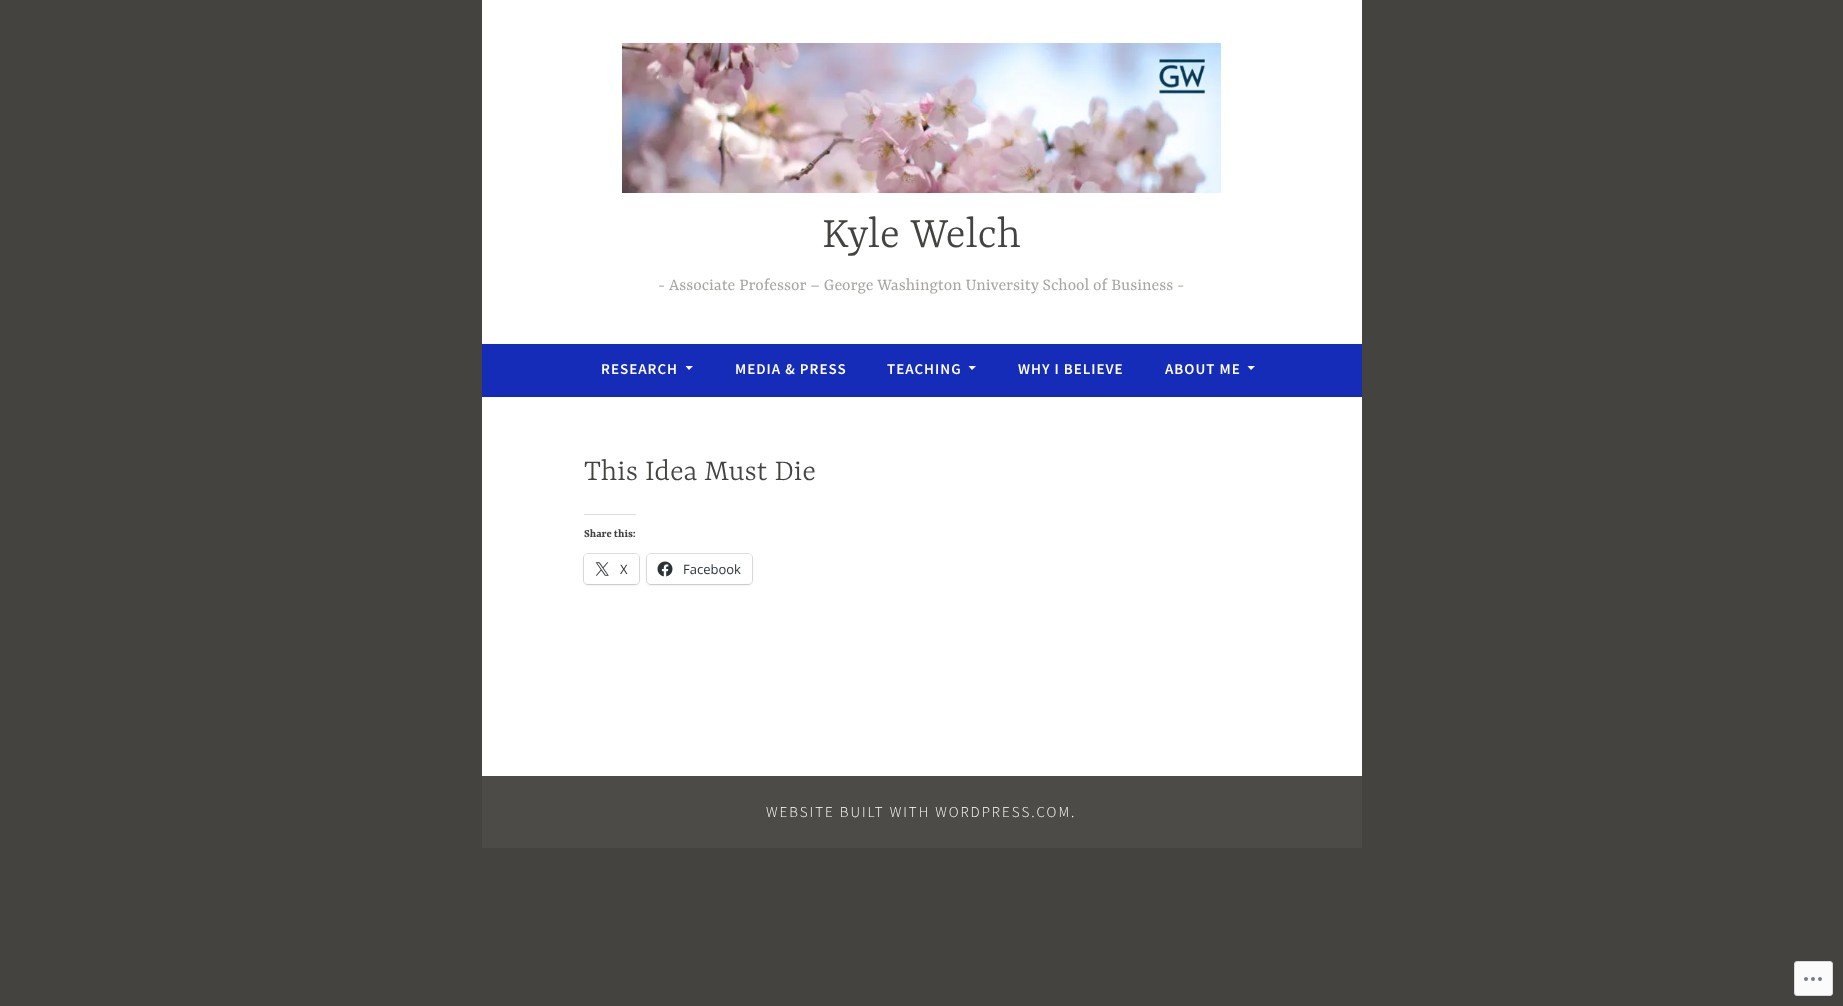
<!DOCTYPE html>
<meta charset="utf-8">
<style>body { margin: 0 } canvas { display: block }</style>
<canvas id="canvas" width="1843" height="1006"></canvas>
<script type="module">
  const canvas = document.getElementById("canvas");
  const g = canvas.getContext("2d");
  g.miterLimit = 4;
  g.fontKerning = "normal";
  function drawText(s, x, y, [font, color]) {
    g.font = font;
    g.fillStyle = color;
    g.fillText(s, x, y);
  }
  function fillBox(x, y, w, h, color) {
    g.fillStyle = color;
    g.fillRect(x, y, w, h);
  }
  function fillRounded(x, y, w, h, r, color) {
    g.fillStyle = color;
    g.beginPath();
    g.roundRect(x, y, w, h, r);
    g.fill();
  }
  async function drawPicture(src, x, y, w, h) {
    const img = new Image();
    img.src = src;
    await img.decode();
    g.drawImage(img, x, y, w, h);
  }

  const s1 = ["300 47px Yrsa", "#444340"];
  const s2 = ["18px Yrsa", "#A8A6A1"];
  const s3 = ["600 15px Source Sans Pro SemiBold", "#FFFFFF"];
  const s4 = ["300 32px Yrsa", "#444340"];
  const s5 = ["bold 12px Yrsa", "#444340"];
  const s6 = ["13px Open Sans", "#2C3338"];
  const s7 = ["300 15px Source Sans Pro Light", "#FFFFFF"];

  fillBox(0, 0, 1843, 1006, "#444340");
  fillBox(482, 0, 880, 344, "#FFFFFF");
  await drawPicture("pic1.png", 622, 43, 599, 150);
  drawText("Kyle Welch", 822, 247, s1);
  drawText("- Associate Professor – George Washington University School of Business -", 658, 290, s2);
  fillBox(482, 344, 880, 51, "#142CB7");
  fillBox(482, 395, 880, 2, "#132BB2");
  g.letterSpacing = "1px";
  drawText("RESEARCH", 601, 374, s3);
  g.beginPath();
  g.moveTo(685.5, 366);
  g.lineTo(693, 366);
  g.lineTo(689, 370);
  g.closePath();
  g.fill();
  drawText("MEDIA & PRESS", 735, 374, s3);
  drawText("TEACHING", 887, 374, s3);
  g.beginPath();
  g.moveTo(968.5, 366);
  g.lineTo(976, 366);
  g.lineTo(972, 370);
  g.closePath();
  g.fill();
  drawText("WHY I BELIEVE", 1018, 374, s3);
  drawText("ABOUT ME", 1165, 374, s3);
  g.beginPath();
  g.moveTo(1247.5, 366);
  g.lineTo(1255, 366);
  g.lineTo(1251, 370);
  g.closePath();
  g.fill();
  fillBox(482, 397, 880, 379, "#FFFFFF");
  g.letterSpacing = "0px";
  drawText("This Idea Must Die", 584, 480, s4);
  fillBox(584, 514, 52, 1, "#DCDCDE");
  drawText("Share this:", 584, 537, s5);
  g.beginPath();
  g.roundRect(583.5, 553.5, 56, 31, 4.5);
  g.strokeStyle = "#E0E0E0";
  g.stroke();
  g.fillStyle = "rgba(0, 0, 0, 0.12)";
  g.filter = "blur(1px)";
  g.beginPath();
  g.roundRect(584, 555, 55, 30, 4);
  g.fill();
  g.filter = "none";
  fillRounded(584, 554, 55, 30, 4, "#FFFFFF");
  await drawPicture("pic2.png", 595, 562, 14, 14);
  drawText("X", 620, 574, s6);
  g.beginPath();
  g.roundRect(646.5, 553.5, 106, 31, 4.5);
  g.stroke();
  g.fillStyle = "rgba(0, 0, 0, 0.12)";
  g.filter = "blur(1px)";
  g.beginPath();
  g.roundRect(647, 555, 105, 30, 4);
  g.fill();
  g.filter = "none";
  fillRounded(647, 554, 105, 30, 4, "#FFFFFF");
  await drawPicture("pic3.png", 657, 561, 16, 16);
  drawText("Facebook", 683, 574, s6);
  fillBox(482, 776, 880, 72, "#4C4B47");
  g.letterSpacing = "2px";
  drawText("WEBSITE BUILT WITH WORDPRESS.COM.", 766, 817, s7);
  g.fillStyle = "#FBFBFB";
  g.beginPath();
  g.roundRect(1794.5, 961.5, 38, 34, 2.5);
  g.fill();
  g.strokeStyle = "#D9D9DB";
  g.stroke();
  await drawPicture("pic4.png", 1804, 977, 18, 4);
</script>
